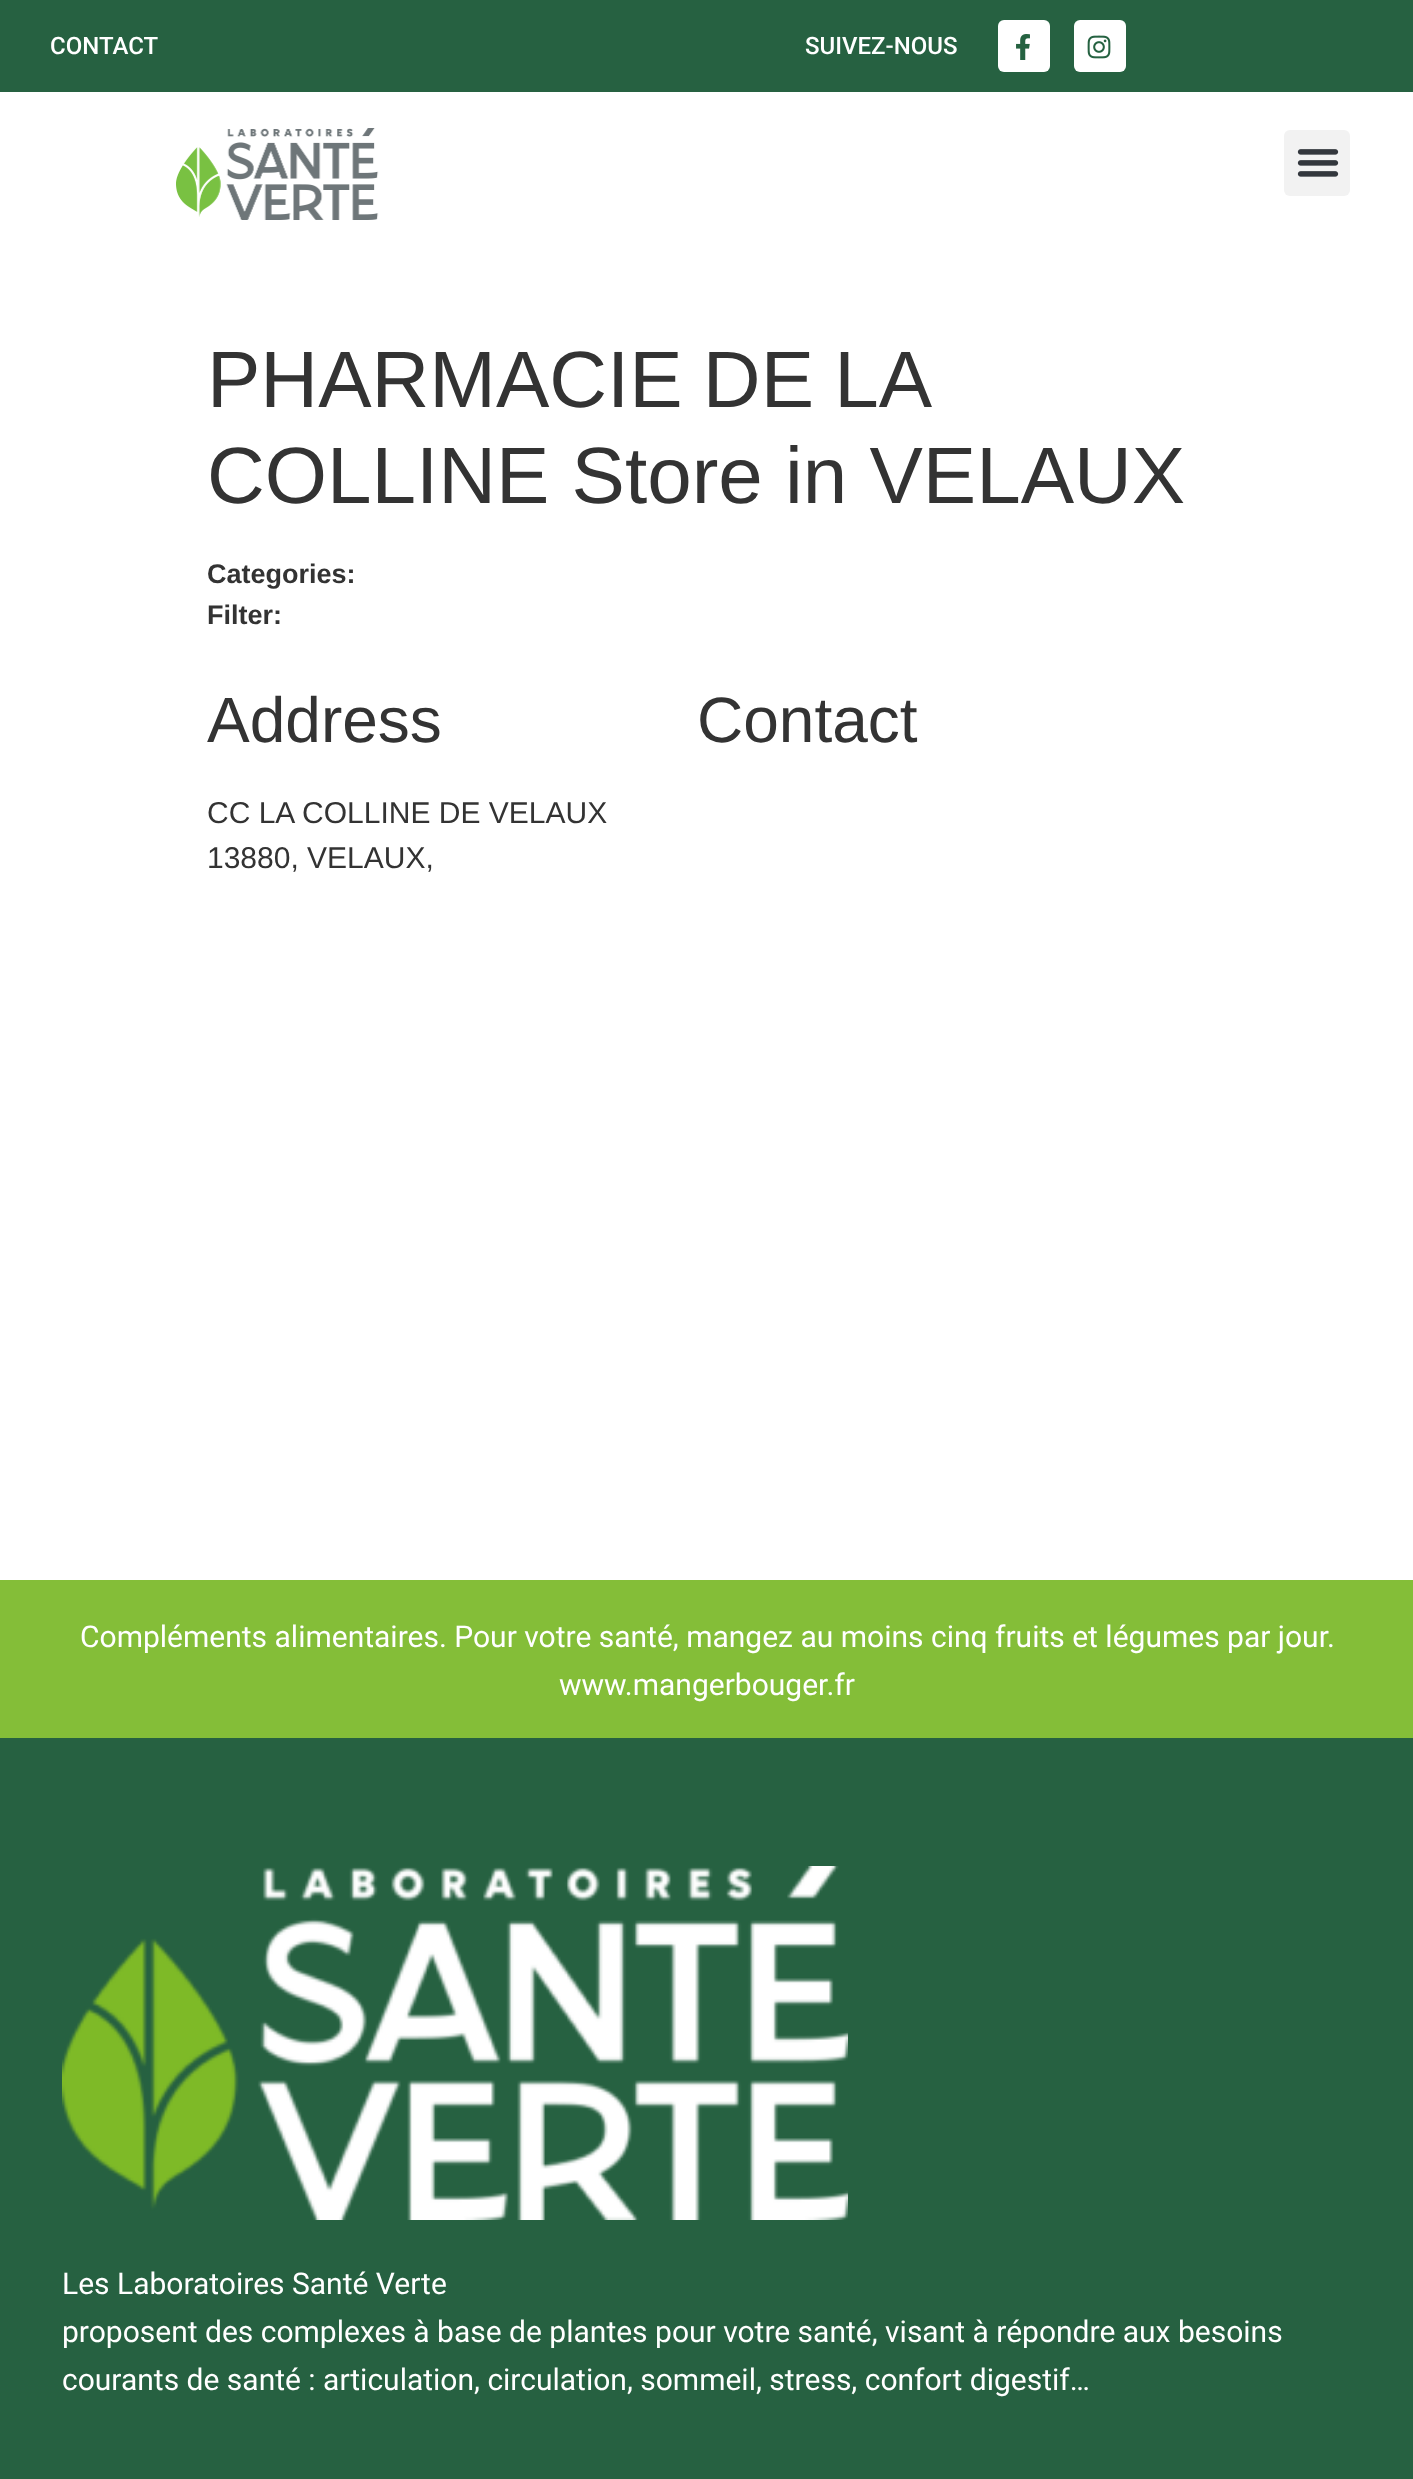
<!DOCTYPE html>
<meta charset="utf-8">
<style>body { margin: 0 } canvas { display: block }</style>
<canvas id="canvas" width="1413" height="2479"></canvas>
<script type="module">
  const canvas = document.getElementById("canvas");
  const g = canvas.getContext("2d");
  g.miterLimit = 4;
  g.fontKerning = "normal";
  function drawText(s, x, y, [font, color]) {
    g.font = font;
    g.fillStyle = color;
    g.fillText(s, x, y);
  }
  function fillBox(x, y, w, h, color) {
    g.fillStyle = color;
    g.fillRect(x, y, w, h);
  }
  function fillRounded(x, y, w, h, r, color) {
    g.fillStyle = color;
    g.beginPath();
    g.roundRect(x, y, w, h, r);
    g.fill();
  }
  async function drawPicture(src, x, y, w, h) {
    const img = new Image();
    img.src = src;
    await img.decode();
    g.drawImage(img, x, y, w, h);
  }

  const s1 = ["500 24px Roboto", "#FFFFFF"];
  const s2 = ["80px Liberation Sans", "#333333"];
  const s3 = ["bold 27px Liberation Sans", "#333333"];
  const s4 = ["64px Liberation Sans", "#333333"];
  const s5 = ["30px Liberation Sans", "#333333"];
  const s6 = ["30px Roboto", "#FFFFFF"];

  fillBox(0, 0, 1413, 2479, "#FFFFFF");
  fillBox(0, 0, 1413, 92, "#266141");
  drawText("CONTACT", 50, 54, s1);
  drawText("SUIVEZ-NOUS", 805, 54, s1);
  fillRounded(998, 20, 52, 52, 6, "#FFFFFF");
  await drawPicture("pic1.png", 1016, 34, 14, 26);
  fillRounded(1074, 20, 52, 52, 6, "#FFFFFF");
  await drawPicture("pic2.png", 1087, 35, 24, 24);
  await drawPicture("pic3.png", 176, 128, 203, 92);
  fillRounded(1284, 130, 66, 66, 6, "#F2F2F2");
  await drawPicture("pic4.png", 1297, 149, 42, 28);
  g.wordSpacing = "-2px";
  drawText("PHARMACIE DE LA", 207, 407, s2);
  g.wordSpacing = "0px";
  drawText("COLLINE Store in VELAUX", 207, 503, s2);
  drawText("Categories:", 207, 583, s3);
  drawText("Filter:", 207, 624, s3);
  drawText("Address", 207, 742, s4);
  drawText("CC LA COLLINE DE VELAUX", 207, 823, s5);
  drawText("13880, VELAUX,", 207, 868, s5);
  drawText("Contact", 697, 742, s4);
  fillBox(0, 1580, 1413, 158, "#84BE38");
  drawText("Compléments alimentaires. Pour votre santé, mangez au moins cinq fruits et légumes par jour.", 80, 1647, s6);
  drawText("www.mangerbouger.fr", 559, 1695, s6);
  fillBox(0, 1738, 1413, 741, "#266141");
  await drawPicture("pic5.png", 62, 1866, 786, 354);
  drawText("Les Laboratoires Santé Verte", 62, 2294, s6);
  drawText("proposent des complexes à base de plantes pour votre santé, visant à répondre aux besoins", 62, 2342, s6);
  drawText("courants de santé : articulation, circulation, sommeil, stress, confort digestif…", 62, 2390, s6);
</script>
